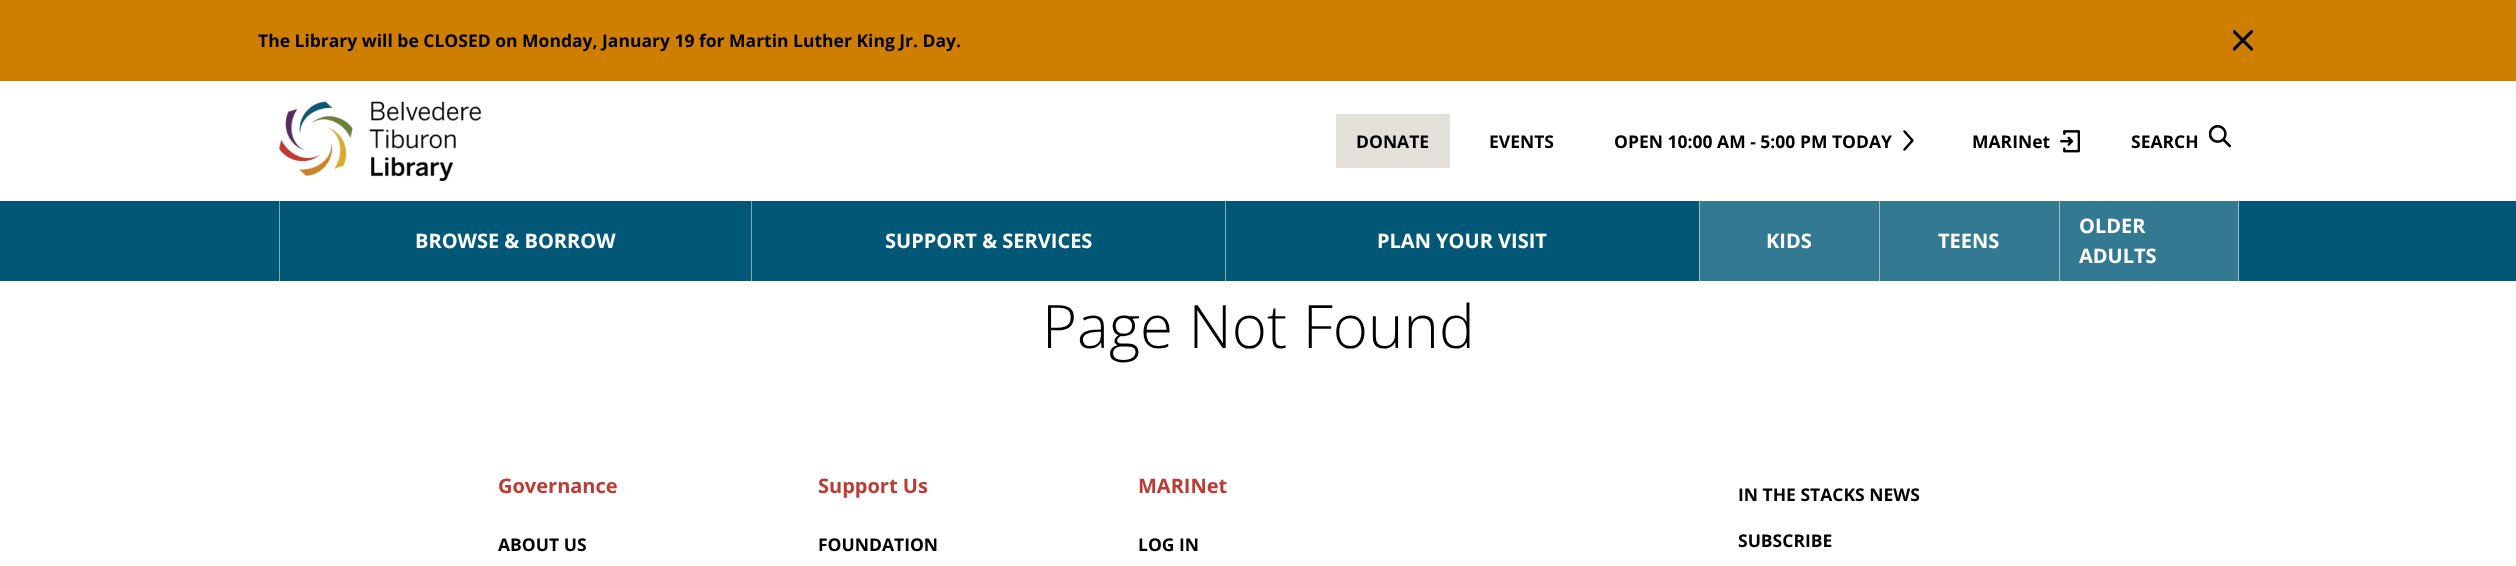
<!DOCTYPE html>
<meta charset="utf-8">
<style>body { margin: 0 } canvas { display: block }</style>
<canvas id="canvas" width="2516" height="566"></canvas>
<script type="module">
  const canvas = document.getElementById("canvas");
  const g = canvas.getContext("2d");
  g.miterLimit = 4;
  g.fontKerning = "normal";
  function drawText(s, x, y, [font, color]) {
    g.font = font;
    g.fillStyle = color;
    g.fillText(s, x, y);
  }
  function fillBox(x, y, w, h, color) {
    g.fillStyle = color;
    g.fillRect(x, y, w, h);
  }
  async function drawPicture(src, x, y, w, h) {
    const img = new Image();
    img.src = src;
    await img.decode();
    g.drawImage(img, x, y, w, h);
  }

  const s1 = ["bold 17.5px Open Sans", "#000000"];
  const s2 = ["bold 20px Open Sans", "#FFFFFF"];
  const s3 = ["300 60px Open Sans", "#000000"];
  const s4 = ["bold 20px Open Sans", "#BE3A34"];

  fillBox(0, 0, 2516, 566, "#FFFFFF");
  fillBox(0, 0, 2516, 81, "#CF7F00");
  drawText("The Library will be CLOSED on Monday, January 19 for Martin Luther King Jr. Day.", 258, 47, s1);
  await drawPicture("pic1.png", 2233, 30, 21, 21);
  await drawPicture("pic2.png", 279, 101, 202, 81);
  fillBox(1336, 114, 114, 54, "#E3DFD9");
  drawText("DONATE", 1356, 148, s1);
  drawText("EVENTS", 1489, 148, s1);
  drawText("OPEN 10:00 AM - 5:00 PM TODAY", 1614, 148, s1);
  g.beginPath();
  g.moveTo(1904.5, 131.5);
  g.lineTo(1912.5, 140.5);
  g.lineTo(1904.5, 149.5);
  g.strokeStyle = "#000000";
  g.lineWidth = 2.5;
  g.lineCap = "round";
  g.lineJoin = "round";
  g.stroke();
  drawText("MARINet", 1972, 148, s1);
  await drawPicture("pic3.png", 2060, 130, 20, 23);
  drawText("SEARCH", 2131, 148, s1);
  await drawPicture("pic4.png", 2209, 125, 22, 23);
  fillBox(0, 201, 2516, 80, "#005776");
  fillBox(279, 201, 1, 80, "#80ABBB");
  drawText("BROWSE & BORROW", 415, 248, s2);
  fillBox(751, 201, 1, 80, "#80ABBB");
  drawText("SUPPORT & SERVICES", 885, 248, s2);
  fillBox(1225, 201, 1, 80, "#80ABBB");
  drawText("PLAN YOUR VISIT", 1377, 248, s2);
  fillBox(1700, 201, 179, 80, "#337991");
  fillBox(1699, 201, 1, 80, "#99BCC8");
  drawText("KIDS", 1766, 248, s2);
  fillBox(1880, 201, 179, 80, "#337991");
  fillBox(1879, 201, 1, 80, "#99BCC8");
  drawText("TEENS", 1938, 248, s2);
  fillBox(2060, 201, 178, 80, "#337991");
  fillBox(2238, 201, 1, 80, "#99BCC8");
  fillBox(2059, 201, 1, 80, "#99BCC8");
  drawText("OLDER", 2079, 233, s2);
  drawText("ADULTS", 2079, 263, s2);
  drawText("Page Not Found", 1042, 348, s3);
  drawText("Governance", 498, 493, s4);
  drawText("ABOUT US", 498, 551, s1);
  drawText("Support Us", 818, 493, s4);
  drawText("FOUNDATION", 818, 551, s1);
  drawText("MARINet", 1138, 493, s4);
  drawText("LOG IN", 1138, 551, s1);
  drawText("IN THE STACKS NEWS", 1738, 501, s1);
  drawText("SUBSCRIBE", 1738, 547, s1);
</script>
